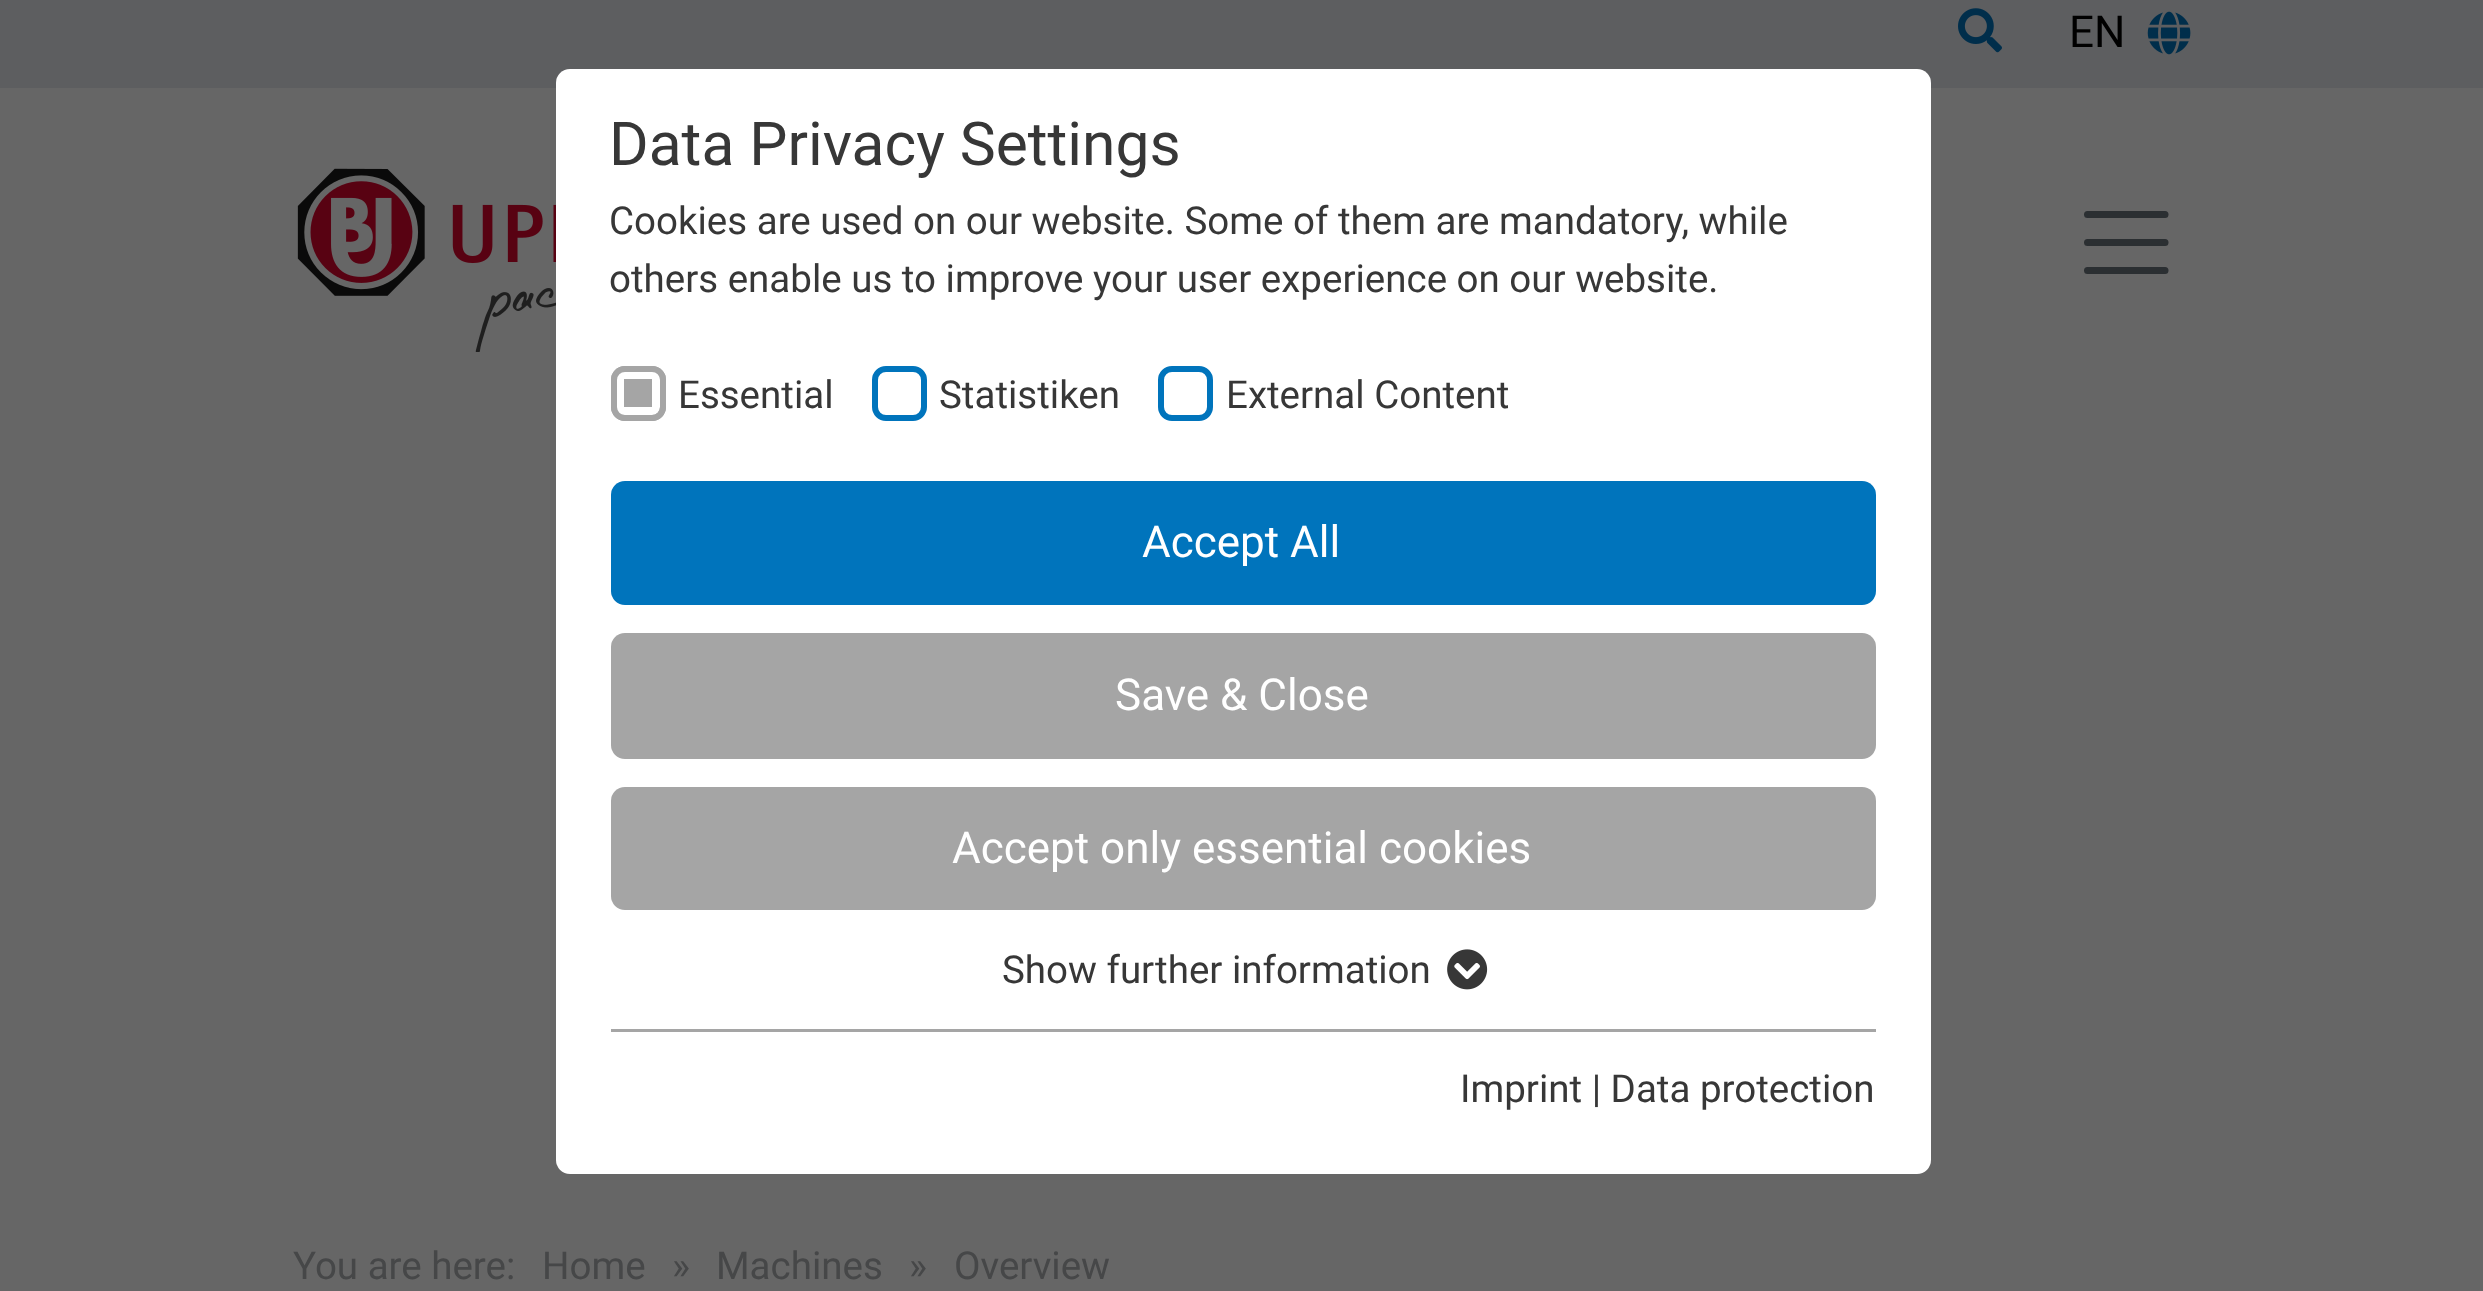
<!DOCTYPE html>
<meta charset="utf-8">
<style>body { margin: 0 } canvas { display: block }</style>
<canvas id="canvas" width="2483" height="1291"></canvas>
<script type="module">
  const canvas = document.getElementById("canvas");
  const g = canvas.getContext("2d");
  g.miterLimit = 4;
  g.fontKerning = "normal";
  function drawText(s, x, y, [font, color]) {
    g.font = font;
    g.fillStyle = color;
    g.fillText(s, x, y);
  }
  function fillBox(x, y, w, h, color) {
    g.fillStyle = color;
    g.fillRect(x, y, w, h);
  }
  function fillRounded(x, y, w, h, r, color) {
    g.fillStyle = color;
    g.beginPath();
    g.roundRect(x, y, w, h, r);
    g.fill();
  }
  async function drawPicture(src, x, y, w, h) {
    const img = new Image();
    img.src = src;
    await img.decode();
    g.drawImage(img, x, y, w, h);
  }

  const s1 = ["44px Roboto", "#000000"];
  const s2 = ["38.5px Roboto", "#464748"];
  const s3 = ["60.5px Roboto", "#373737"];
  const s4 = ["38.5px Roboto", "#373737"];
  const s5 = ["44px Roboto", "#FFFFFF"];

  fillBox(0, 0, 2483, 1291, "#666666");
  fillBox(0, 0, 2483, 88, "#5D5E60");
  await drawPicture("pic1.png", 1958, 8, 44, 45);
  drawText("EN", 2069, 47, s1);
  await drawPicture("pic2.png", 2147, 11, 44, 44);
  await drawPicture("pic3.png", 297, 168, 259, 184);
  g.beginPath();
  g.moveTo(2087.5, 214.5);
  g.lineTo(2165, 214.5);
  g.moveTo(2087.5, 242.5);
  g.lineTo(2165, 242.5);
  g.moveTo(2087.5, 270.5);
  g.lineTo(2165, 270.5);
  g.strokeStyle = "#2B2F32";
  g.lineWidth = 7;
  g.lineCap = "round";
  g.stroke();
  drawText("You are here:", 293, 1279, s2);
  drawText("Home", 542, 1279, s2);
  drawText("»", 672, 1279, s2);
  drawText("Machines", 716, 1279, s2);
  drawText("»", 909, 1279, s2);
  drawText("Overview", 954, 1279, s2);
  fillRounded(556, 69, 1375, 1105, 14, "#FFFFFF");
  drawText("Data Privacy Settings", 609, 165, s3);
  drawText("Cookies are used on our website. Some of them are mandatory, while", 609, 234, s4);
  drawText("others enable us to improve your user experience on our website.", 609, 292, s4);
  fillRounded(611, 366, 55, 55, 14, "#A5A5A5");
  g.beginPath();
  g.roundRect(620, 375, 36, 36, 4);
  g.strokeStyle = "#FFFFFF";
  g.lineWidth = 8;
  g.stroke();
  g.beginPath();
  g.roundRect(614, 369, 49, 49, 11);
  g.strokeStyle = "#A5A5A5";
  g.lineWidth = 6;
  g.stroke();
  drawText("Essential", 678, 408, s4);
  g.beginPath();
  g.roundRect(875, 369, 49, 49, 11);
  g.strokeStyle = "#0074BC";
  g.stroke();
  drawText("Statistiken", 939, 408, s4);
  g.beginPath();
  g.roundRect(1161, 369, 49, 49, 11);
  g.stroke();
  drawText("External Content", 1226, 408, s4);
  fillRounded(611, 481, 1265, 124, 14, "#0074BC");
  drawText("Accept All", 1142, 557, s5);
  fillRounded(611, 633, 1265, 126, 14, "#A5A5A5");
  drawText("Save & Close", 1115, 710, s5);
  fillRounded(611, 787, 1265, 123, 14, "#A5A5A5");
  drawText("Accept only essential cookies", 952, 863, s5);
  drawText("Show further information", 1002, 983, s4);
  await drawPicture("pic4.png", 1447, 949, 41, 41);
  fillBox(611, 1029, 1265, 3, "#A5A5A5");
  drawText("Imprint | Data protection", 1460, 1102, s4);
</script>
